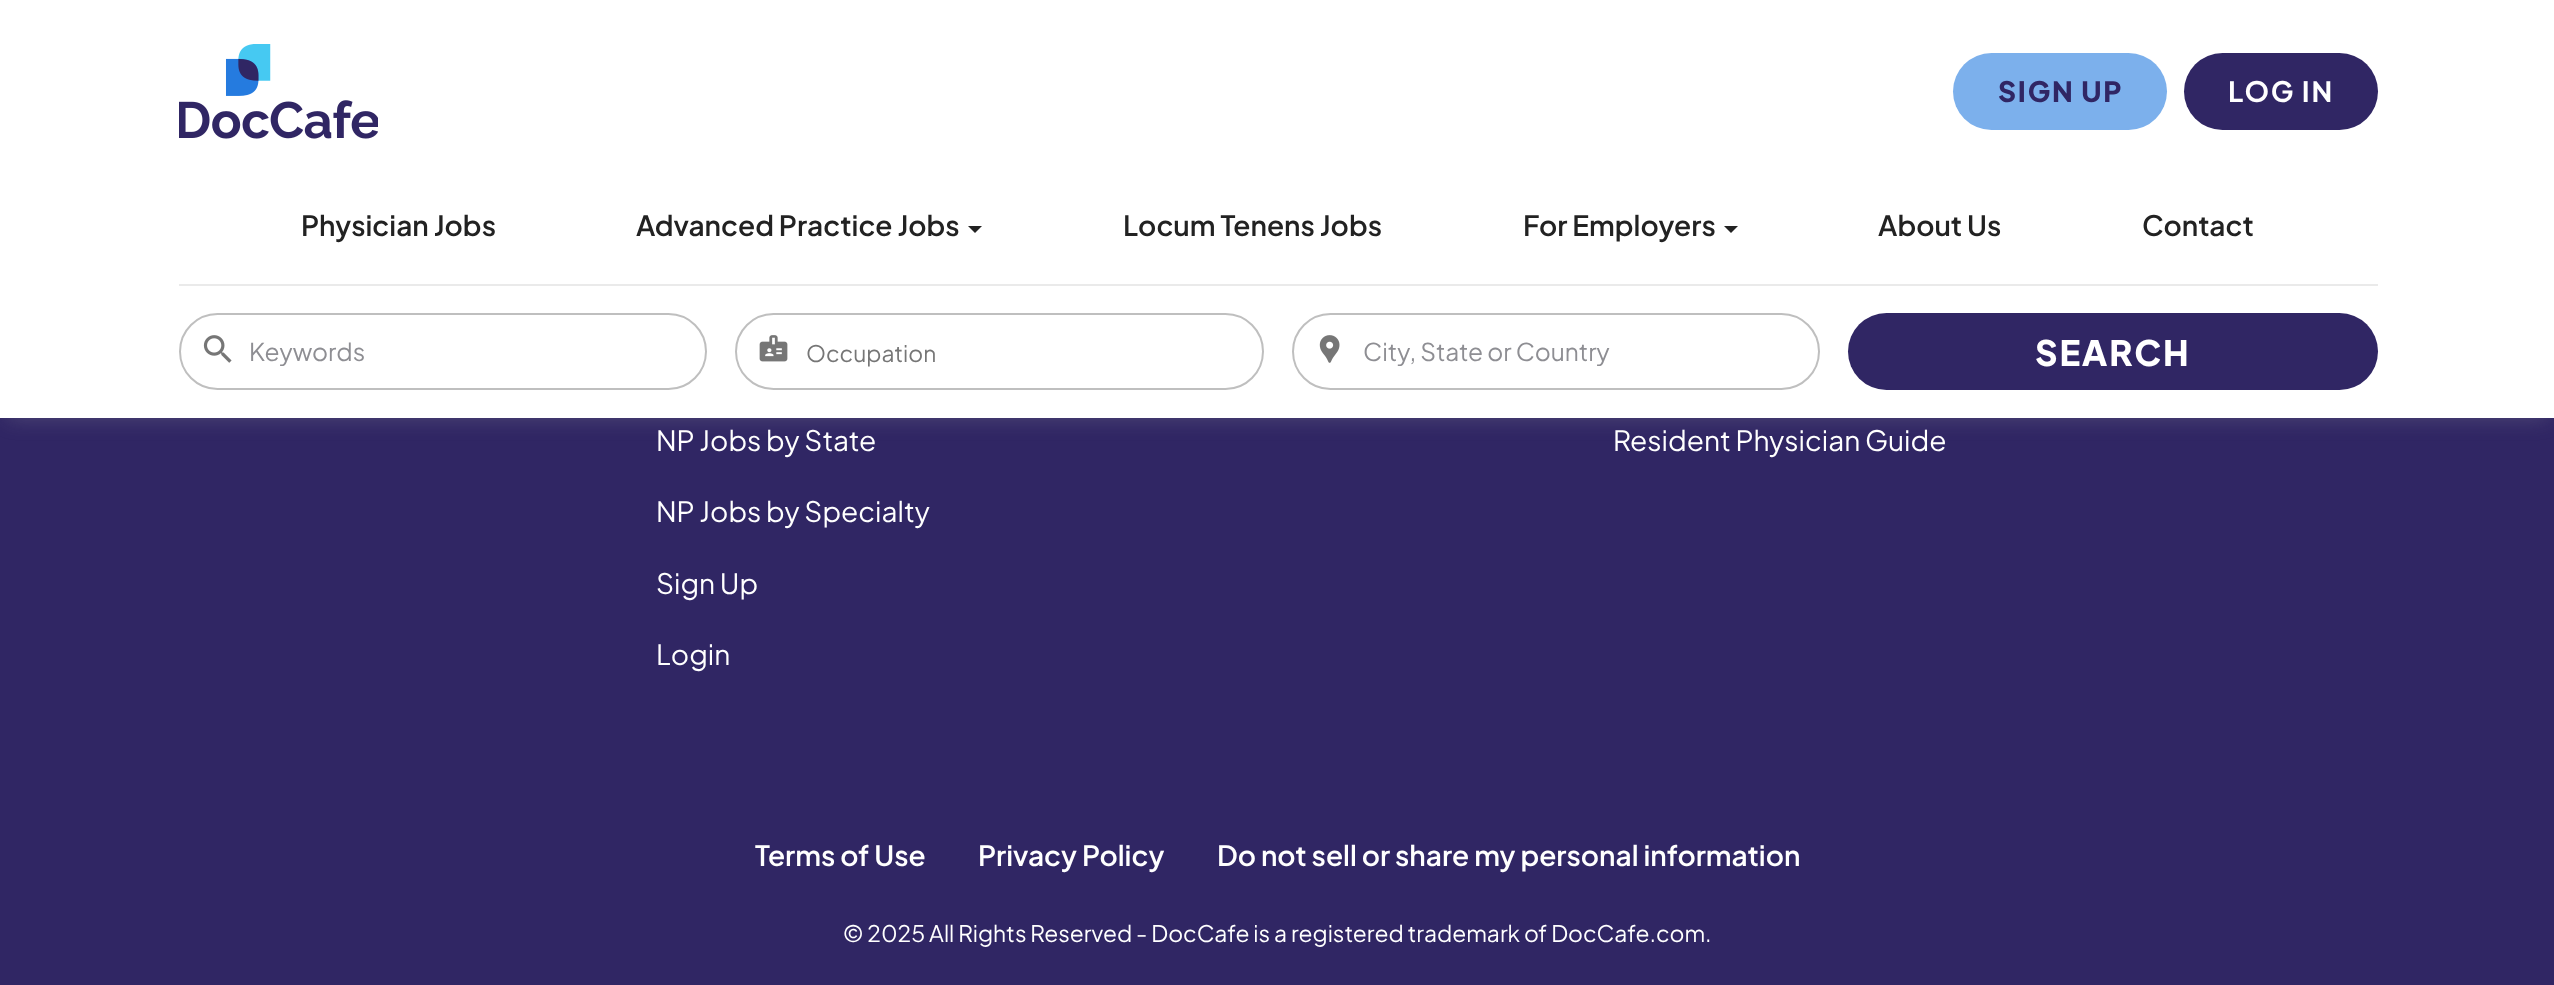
<!DOCTYPE html>
<meta charset="utf-8">
<style>body { margin: 0 } canvas { display: block }</style>
<canvas id="canvas" width="2554" height="985"></canvas>
<script type="module">
  const canvas = document.getElementById("canvas");
  const g = canvas.getContext("2d");
  g.miterLimit = 4;
  g.fontKerning = "normal";
  function drawText(s, x, y, [font, color]) {
    g.font = font;
    g.fillStyle = color;
    g.fillText(s, x, y);
  }
  function fillBox(x, y, w, h, color) {
    g.fillStyle = color;
    g.fillRect(x, y, w, h);
  }
  function fillRounded(x, y, w, h, r, color) {
    g.fillStyle = color;
    g.beginPath();
    g.roundRect(x, y, w, h, r);
    g.fill();
  }
  async function drawPicture(src, x, y, w, h) {
    const img = new Image();
    img.src = src;
    await img.decode();
    g.drawImage(img, x, y, w, h);
  }

  const s1 = ["800 28px Plus Jakarta Sans", "#302664"];
  const s2 = ["bold 28px Plus Jakarta Sans", "#FFFFFF"];
  const s3 = ["600 28px Plus Jakarta Sans", "#222222"];
  const s4 = ["24.5px Plus Jakarta Sans", "#8E8E93"];
  const s5 = ["22.75px Plus Jakarta Sans", "#767676"];
  const s6 = ["800 35px Plus Jakarta Sans", "#FFFFFF"];
  const s7 = ["28px Plus Jakarta Sans", "#FFFFFF"];
  const s8 = ["600 28px Plus Jakarta Sans", "#FFFFFF"];
  const s9 = ["22.75px Plus Jakarta Sans", "#FFFFFF"];

  fillBox(0, 0, 2554, 985, "#302664");
  g.fillStyle = "rgba(176, 176, 176, 0.25)";
  g.filter = "blur(10.5px)";
  g.beginPath();
  g.rect(7, 14, 2541, 404);
  g.fill();
  g.filter = "none";
  fillBox(0, 0, 2554, 418, "#FFFFFF");
  await drawPicture("pic1.png", 179, 44, 199, 95);
  fillRounded(1953, 53, 214, 77, 38.5, "#7CB0EC");
  g.letterSpacing = "1.75px";
  drawText("SIGN UP", 1998, 102, s1);
  fillRounded(2184, 53, 194, 77, 38.5, "#302664");
  drawText("LOG IN", 2228, 102, s2);
  g.letterSpacing = "0px";
  drawText("Physician Jobs", 301, 236, s3);
  drawText("Advanced Practice Jobs", 636, 236, s3);
  g.beginPath();
  g.moveTo(968, 226);
  g.lineTo(982, 226);
  g.lineTo(975, 233);
  g.closePath();
  g.fill();
  drawText("Locum Tenens Jobs", 1123, 236, s3);
  drawText("For Employers", 1523, 236, s3);
  g.beginPath();
  g.moveTo(1724, 226);
  g.lineTo(1738, 226);
  g.lineTo(1731, 233);
  g.closePath();
  g.fill();
  drawText("About Us", 1878, 236, s3);
  drawText("Contact", 2142, 236, s3);
  fillBox(179, 284, 2199, 2, "#EAEAEA");
  g.beginPath();
  g.roundRect(180, 314, 526, 75, 37.5);
  g.strokeStyle = "#BFBFBF";
  g.lineWidth = 2;
  g.stroke();
  await drawPicture("pic2.png", 203, 335, 29, 28);
  g.save();
  g.beginPath();
  g.rect(250, 334, 385, 32);
  g.clip();
  drawText("Keywords", 249, 361, s4);
  g.restore();
  g.beginPath();
  g.roundRect(736, 314, 527, 75, 37.5);
  g.stroke();
  await drawPicture("pic3.png", 759, 335, 29, 27);
  drawText("Occupation", 806, 362, s5);
  g.beginPath();
  g.roundRect(1293, 314, 526, 75, 37.5);
  g.stroke();
  await drawPicture("pic4.png", 1319, 335, 21, 28);
  g.save();
  g.beginPath();
  g.rect(1363, 334, 385, 32);
  g.clip();
  drawText("City, State or Country", 1363, 361, s4);
  g.restore();
  fillRounded(1848, 313, 530, 77, 38.5, "#302664");
  g.letterSpacing = "1.75px";
  drawText("SEARCH", 2035, 366, s6);
  g.letterSpacing = "0px";
  drawText("NP Jobs by State", 656, 451, s7);
  drawText("NP Jobs by Specialty", 656, 522, s7);
  drawText("Sign Up", 656, 594, s7);
  drawText("Login", 656, 665, s7);
  drawText("Resident Physician Guide", 1613, 451, s7);
  drawText("Terms of Use", 755, 866, s8);
  drawText("Privacy Policy", 978, 866, s8);
  drawText("Do not sell or share my personal information", 1217, 866, s8);
  drawText("© 2025 All Rights Reserved - DocCafe is a registered trademark of DocCafe.com.", 843, 942, s9);
</script>
